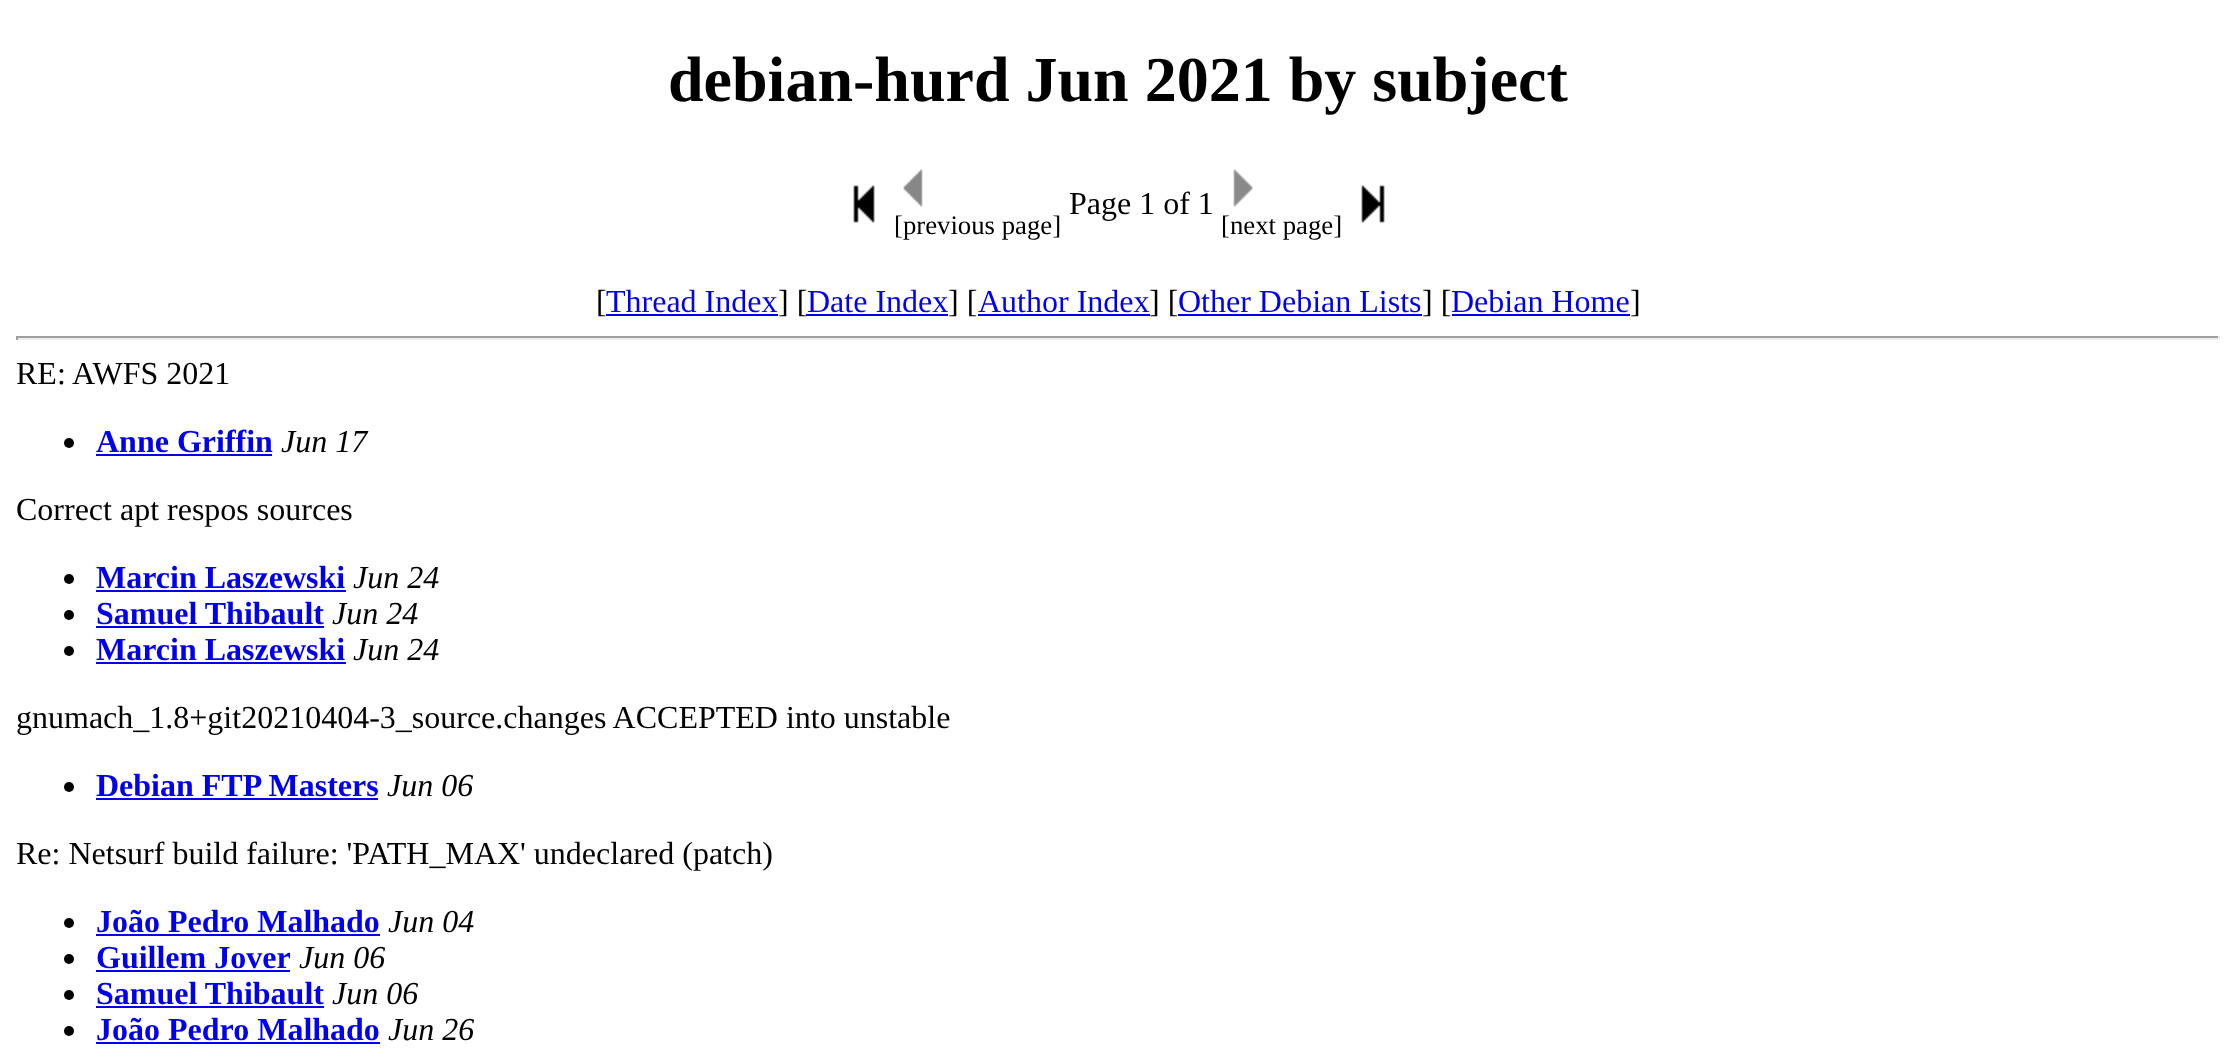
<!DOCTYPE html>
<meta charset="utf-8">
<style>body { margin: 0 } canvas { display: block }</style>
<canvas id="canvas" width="2235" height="1052"></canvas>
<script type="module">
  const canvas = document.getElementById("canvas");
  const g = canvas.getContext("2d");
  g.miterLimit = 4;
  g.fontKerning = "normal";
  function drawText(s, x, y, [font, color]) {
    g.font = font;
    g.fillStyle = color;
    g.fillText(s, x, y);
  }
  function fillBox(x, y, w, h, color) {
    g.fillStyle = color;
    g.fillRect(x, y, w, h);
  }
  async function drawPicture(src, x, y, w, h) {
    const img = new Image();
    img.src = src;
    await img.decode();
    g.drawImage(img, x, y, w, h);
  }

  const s1 = ["bold 64px Liberation Serif", "#000000"];
  const s2 = ["32px Liberation Serif", "#000000"];
  const s3 = ["26.75px Liberation Serif", "#000000"];
  const s4 = ["32px Liberation Serif", "#0000EE"];
  const s5 = ["bold 32px Liberation Serif", "#0000EE"];
  const s6 = ["italic 32px Liberation Serif", "#000000"];

  fillBox(0, 0, 2235, 1052, "#FFFFFF");
  drawText("debian-hurd Jun 2021 by subject", 668, 101, s1);
  await drawPicture("pic1.png", 853, 185, 22, 38);
  drawText("Page 1 of 1", 1069, 214, s2);
  await drawPicture("pic2.png", 1361, 185, 24, 38);
  await drawPicture("pic3.png", 903, 169, 20, 38);
  drawText("[previous page]", 894, 234, s3);
  await drawPicture("pic4.png", 1233, 169, 20, 38);
  drawText("[next page]", 1221, 234, s3);
  drawText("[", 596, 312, s2);
  drawText("Thread Index", 606, 312, s4);
  fillBox(606, 314, 172, 2, "#0000EE");
  drawText("] [", 778, 312, s2);
  drawText("Date Index", 807, 312, s4);
  fillBox(806, 314, 142, 2, "#0000EE");
  drawText("] [", 948, 312, s2);
  drawText("Author Index", 978, 312, s4);
  fillBox(978, 314, 172, 2, "#0000EE");
  drawText("] [", 1149, 312, s2);
  drawText("Other Debian Lists", 1178, 312, s4);
  fillBox(1178, 314, 244, 2, "#0000EE");
  drawText("] [", 1422, 312, s2);
  drawText("Debian Home", 1451, 312, s4);
  fillBox(1452, 314, 178, 2, "#0000EE");
  drawText("]", 1630, 312, s2);
  fillBox(16, 336, 2204, 2, "#9F9F9F");
  fillBox(2218, 336, 2, 4, "#EEEEEE");
  fillBox(16, 338, 2204, 2, "#EEEEEE");
  fillBox(16, 336, 2, 4, "#9F9F9F");
  drawText("RE: AWFS 2021", 16, 384, s2);
  g.beginPath();
  g.arc(69, 443, 5, 0, Math.PI * 2);
  g.fill();
  drawText("Anne Griffin", 96, 452, s5);
  fillBox(96, 454, 176, 2, "#0000EE");
  drawText("Jun 17", 281, 452, s6);
  drawText("Correct apt respos sources", 16, 520, s2);
  g.beginPath();
  g.arc(69, 579, 5, 0, Math.PI * 2);
  g.fill();
  drawText("Marcin Laszewski", 96, 588, s5);
  fillBox(96, 590, 250, 2, "#0000EE");
  drawText("Jun 24", 353, 588, s6);
  g.beginPath();
  g.arc(69, 615, 5, 0, Math.PI * 2);
  g.fill();
  drawText("Samuel Thibault", 96, 624, s5);
  fillBox(96, 626, 228, 2, "#0000EE");
  drawText("Jun 24", 332, 624, s6);
  g.beginPath();
  g.arc(69, 651, 5, 0, Math.PI * 2);
  g.fill();
  drawText("Marcin Laszewski", 96, 660, s5);
  fillBox(96, 662, 250, 2, "#0000EE");
  drawText("Jun 24", 353, 660, s6);
  drawText("gnumach_1.8+git20210404-3_source.changes ACCEPTED into unstable", 16, 728, s2);
  g.beginPath();
  g.arc(69, 787, 5, 0, Math.PI * 2);
  g.fill();
  drawText("Debian FTP Masters", 96, 796, s5);
  fillBox(96, 798, 282, 2, "#0000EE");
  drawText("Jun 06", 387, 796, s6);
  drawText("Re: Netsurf build failure: 'PATH_MAX' undeclared (patch)", 16, 864, s2);
  g.beginPath();
  g.arc(69, 923, 5, 0, Math.PI * 2);
  g.fill();
  drawText("João Pedro Malhado", 96, 932, s5);
  fillBox(96, 934, 284, 2, "#0000EE");
  drawText("Jun 04", 388, 932, s6);
  g.beginPath();
  g.arc(69, 959, 5, 0, Math.PI * 2);
  g.fill();
  drawText("Guillem Jover", 96, 968, s5);
  fillBox(96, 970, 194, 2, "#0000EE");
  drawText("Jun 06", 299, 968, s6);
  g.beginPath();
  g.arc(69, 995, 5, 0, Math.PI * 2);
  g.fill();
  drawText("Samuel Thibault", 96, 1004, s5);
  fillBox(96, 1006, 228, 2, "#0000EE");
  drawText("Jun 06", 332, 1004, s6);
  g.beginPath();
  g.arc(69, 1031, 5, 0, Math.PI * 2);
  g.fill();
  drawText("João Pedro Malhado", 96, 1040, s5);
  fillBox(96, 1042, 284, 2, "#0000EE");
  drawText("Jun 26", 388, 1040, s6);
</script>
